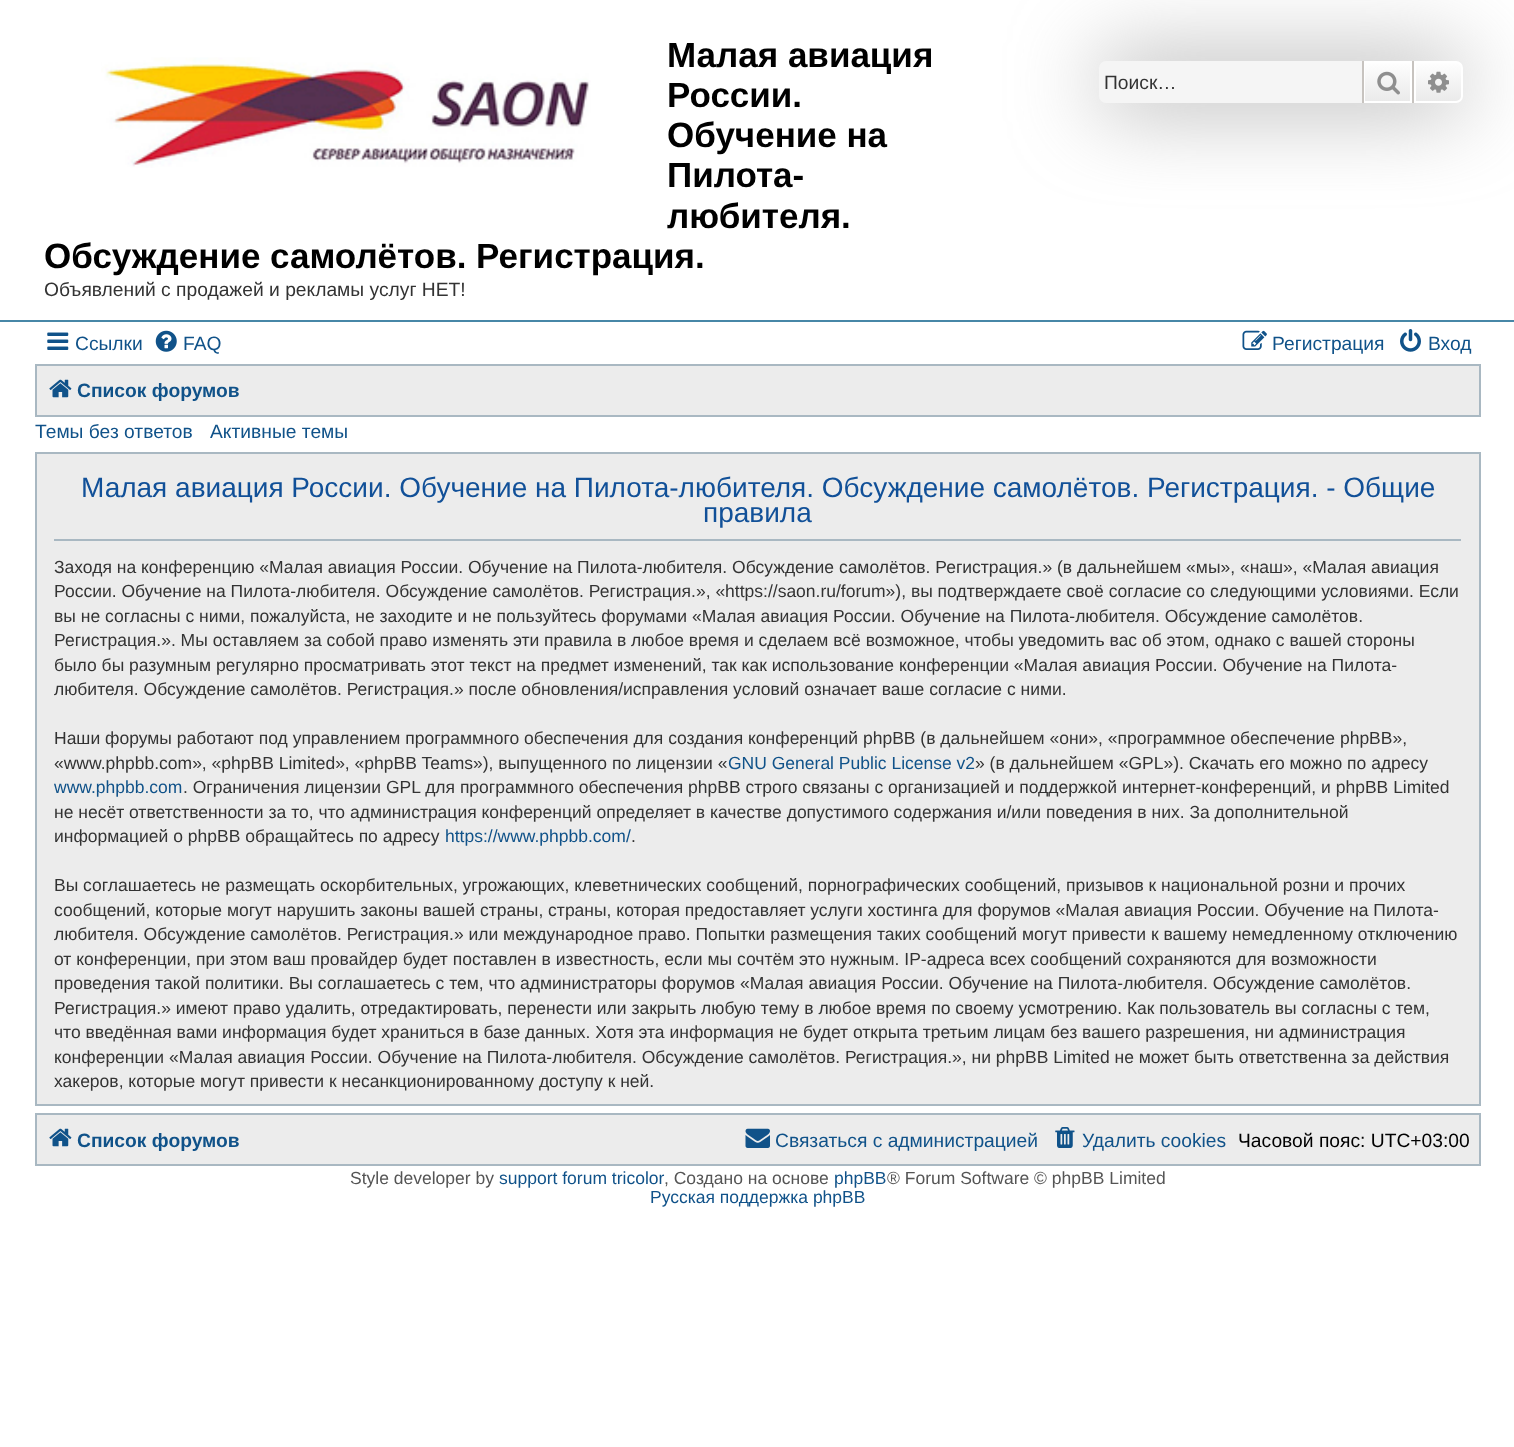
<!DOCTYPE html>
<meta charset="utf-8">
<style>body { margin: 0 } canvas { display: block }</style>
<canvas id="canvas" width="1514" height="1447"></canvas>
<script type="module">
  const canvas = document.getElementById("canvas");
  const g = canvas.getContext("2d");
  g.miterLimit = 4;
  g.fontKerning = "normal";
  function drawText(s, x, y, [font, color]) {
    g.font = font;
    g.fillStyle = color;
    g.fillText(s, x, y);
  }
  function fillBox(x, y, w, h, color) {
    g.fillStyle = color;
    g.fillRect(x, y, w, h);
  }
  async function drawPicture(src, x, y, w, h) {
    const img = new Image();
    img.src = src;
    await img.decode();
    g.drawImage(img, x, y, w, h);
  }
  let gradient;

  const s1 = ["bold 35px Liberation Sans", "#000000"];
  const s2 = ["19.25px Liberation Sans", "#333333"];
  const s3 = ["19.25px Liberation Sans", "#105289"];
  const s4 = ["bold 19.25px Liberation Sans", "#105289"];
  const s5 = ["28px Liberation Sans", "#115098"];
  const s6 = ["17.5px Liberation Sans", "#333333"];
  const s7 = ["17.5px Liberation Sans", "#105289"];
  const s8 = ["19.25px Liberation Sans", "#000000"];
  const s9 = ["17.5px Liberation Sans", "#555555"];

  fillBox(0, 0, 1514, 1447, "#FFFFFF");
  fillBox(0, 320, 1514, 2, "#4787A7");
  drawText("Малая авиация", 667, 67, s1);
  drawText("России.", 667, 107, s1);
  drawText("Обучение на", 667, 147, s1);
  drawText("Пилота-", 667, 187, s1);
  drawText("любителя.", 667, 228, s1);
  drawText("Обсуждение самолётов. Регистрация.", 44, 268, s1);
  await drawPicture("pic1.png", 101, 57, 490, 111);
  drawText("Объявлений с продажей и рекламы услуг НЕТ!", 44, 296, s2);
  g.fillStyle = "#999999";
  g.filter = "blur(44px)";
  g.beginPath();
  g.roundRect(1099, 61, 364, 42, 7);
  g.fill();
  g.filter = "none";
  g.fillStyle = "#F5F5F5";
  g.beginPath();
  g.roundRect(1099, 61, 263, 42, [7, 0, 0, 7]);
  g.fill();
  drawText("Поиск…", 1104, 89, s2);
  gradient = g.createLinearGradient(1388, 61, 1388, 103);
  gradient.addColorStop(0, "#FFFFFF");
  gradient.addColorStop(1, "#E9E9E9");
  g.fillStyle = gradient;
  g.fillRect(1365, 63, 45, 38);
  g.strokeStyle = "#FFFFFF";
  g.lineWidth = 2;
  g.strokeRect(1364, 62, 47, 40);
  fillBox(1412, 61, 2, 42, "#C7C3BF");
  fillBox(1362, 61, 2, 42, "#C7C3BF");
  await drawPicture("pic2.png", 1377, 71, 23, 24);
  gradient = g.createLinearGradient(1439, 61, 1439, 103);
  gradient.addColorStop(0, "#FFFFFF");
  gradient.addColorStop(1, "#E9E9E9");
  g.fillStyle = gradient;
  g.beginPath();
  g.roundRect(1415, 62, 47, 40, [0, 6, 6, 0]);
  g.fill();
  g.stroke();
  await drawPicture("pic3.png", 1428, 71, 21, 22);
  await drawPicture("pic4.png", 47, 332, 22, 18);
  drawText("Ссылки", 75, 350, s3);
  await drawPicture("pic5.png", 155, 330, 22, 22);
  drawText("FAQ", 183, 350, s3);
  await drawPicture("pic6.png", 1242, 330, 25, 20);
  drawText("Регистрация", 1272, 350, s3);
  await drawPicture("pic7.png", 1400, 329, 21, 23);
  drawText("Вход", 1428, 350, s3);
  g.fillStyle = "#ECECEC";
  g.beginPath();
  g.rect(36, 365, 1444, 51);
  g.fill();
  g.strokeStyle = "#A9B8C2";
  g.stroke();
  await drawPicture("pic8.png", 49, 379, 23, 19);
  drawText("Список форумов", 77, 397, s4);
  drawText("Темы без ответов", 35, 438, s3);
  drawText("Активные темы", 210, 438, s3);
  g.fillStyle = "#ECECEC";
  g.beginPath();
  g.rect(36, 453, 1444, 652);
  g.fill();
  g.stroke();
  fillBox(54, 539, 1407, 2, "#A9B8C2");
  drawText("Малая авиация России. Обучение на Пилота-любителя. Обсуждение самолётов. Регистрация. - Общие", 81, 497, s5);
  drawText("правила", 703, 522, s5);
  drawText("Заходя на конференцию «Малая авиация России. Обучение на Пилота-любителя. Обсуждение самолётов. Регистрация.» (в дальнейшем «мы», «наш», «Малая авиация", 54, 573, s6);
  drawText("России. Обучение на Пилота-любителя. Обсуждение самолётов. Регистрация.», «https://saon.ru/forum»), вы подтверждаете своё согласие со следующими условиями. Если", 54, 597, s6);
  drawText("вы не согласны с ними, пожалуйста, не заходите и не пользуйтесь форумами «Малая авиация России. Обучение на Пилота-любителя. Обсуждение самолётов.", 54, 622, s6);
  drawText("Регистрация.». Мы оставляем за собой право изменять эти правила в любое время и сделаем всё возможное, чтобы уведомить вас об этом, однако с вашей стороны", 54, 646, s6);
  drawText("было бы разумным регулярно просматривать этот текст на предмет изменений, так как использование конференции «Малая авиация России. Обучение на Пилота-", 54, 671, s6);
  drawText("любителя. Обсуждение самолётов. Регистрация.» после обновления/исправления условий означает ваше согласие с ними.", 54, 695, s6);
  drawText("Наши форумы работают под управлением программного обеспечения для создания конференций phpBB (в дальнейшем «они», «программное обеспечение phpBB»,", 54, 744, s6);
  drawText("«www.phpbb.com», «phpBB Limited», «phpBB Teams»), выпущенного по лицензии «", 54, 769, s6);
  drawText("GNU General Public License v2", 728, 769, s7);
  drawText("» (в дальнейшем «GPL»). Скачать его можно по адресу", 975, 769, s6);
  drawText("www.phpbb.com", 54, 793, s7);
  drawText(". Ограничения лицензии GPL для программного обеспечения phpBB строго связаны с организацией и поддержкой интернет-конференций, и phpBB Limited", 183, 793, s6);
  drawText("не несёт ответственности за то, что администрация конференций определяет в качестве допустимого содержания и/или поведения в них. За дополнительной", 54, 818, s6);
  drawText("информацией о phpBB обращайтесь по адресу", 54, 842, s6);
  drawText("https://www.phpbb.com/", 445, 842, s7);
  drawText(".", 631, 842, s6);
  drawText("Вы соглашаетесь не размещать оскорбительных, угрожающих, клеветнических сообщений, порнографических сообщений, призывов к национальной розни и прочих", 54, 891, s6);
  drawText("сообщений, которые могут нарушить законы вашей страны, страны, которая предоставляет услуги хостинга для форумов «Малая авиация России. Обучение на Пилота-", 54, 916, s6);
  drawText("любителя. Обсуждение самолётов. Регистрация.» или международное право. Попытки размещения таких сообщений могут привести к вашему немедленному отключению", 54, 940, s6);
  drawText("от конференции, при этом ваш провайдер будет поставлен в известность, если мы сочтём это нужным. IP-адреса всех сообщений сохраняются для возможности", 54, 965, s6);
  drawText("проведения такой политики. Вы соглашаетесь с тем, что администраторы форумов «Малая авиация России. Обучение на Пилота-любителя. Обсуждение самолётов.", 54, 989, s6);
  drawText("Регистрация.» имеют право удалить, отредактировать, перенести или закрыть любую тему в любое время по своему усмотрению. Как пользователь вы согласны с тем,", 54, 1014, s6);
  drawText("что введённая вами информация будет храниться в базе данных. Хотя эта информация не будет открыта третьим лицам без вашего разрешения, ни администрация", 54, 1038, s6);
  drawText("конференции «Малая авиация России. Обучение на Пилота-любителя. Обсуждение самолётов. Регистрация.», ни phpBB Limited не может быть ответственна за действия", 54, 1063, s6);
  drawText("хакеров, которые могут привести к несанкционированному доступу к ней.", 54, 1087, s6);
  g.fillStyle = "#ECECEC";
  g.beginPath();
  g.rect(36, 1114, 1444, 51);
  g.fill();
  g.stroke();
  await drawPicture("pic8.png", 49, 1128, 23, 19);
  drawText("Список форумов", 77, 1147, s4);
  await drawPicture("pic9.png", 745, 1128, 25, 20);
  drawText("Связаться с администрацией", 775, 1147, s3);
  await drawPicture("pic10.png", 1055, 1127, 20, 21);
  drawText("Удалить cookies", 1082, 1147, s3);
  drawText("Часовой пояс: UTC+03:00", 1238, 1147, s8);
  drawText("Style developer by", 350, 1184, s9);
  drawText("support forum tricolor", 499, 1184, s7);
  drawText(", Создано на основе", 664, 1184, s9);
  drawText("phpBB", 834, 1184, s7);
  drawText("® Forum Software © phpBB Limited", 887, 1184, s9);
  drawText("Русская поддержка phpBB", 650, 1203, s7);
</script>
